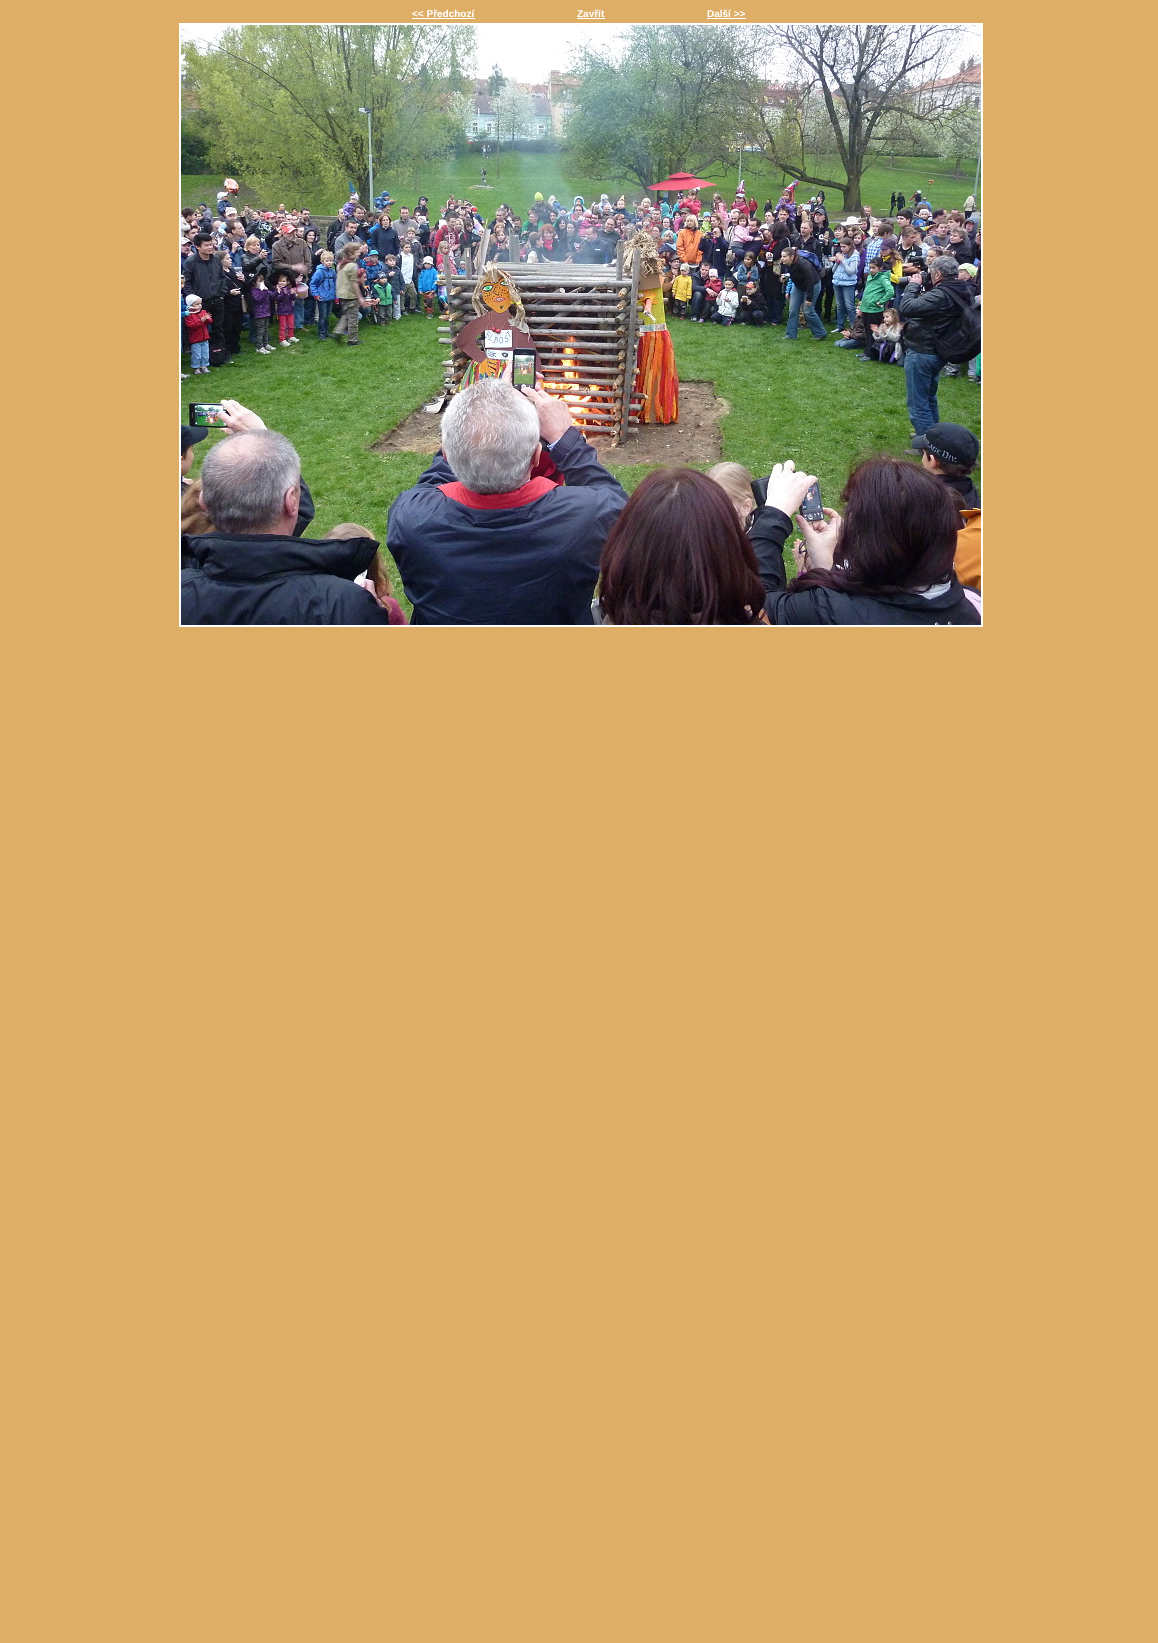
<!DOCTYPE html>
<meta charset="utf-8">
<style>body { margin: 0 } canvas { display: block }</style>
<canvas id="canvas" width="1158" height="1643"></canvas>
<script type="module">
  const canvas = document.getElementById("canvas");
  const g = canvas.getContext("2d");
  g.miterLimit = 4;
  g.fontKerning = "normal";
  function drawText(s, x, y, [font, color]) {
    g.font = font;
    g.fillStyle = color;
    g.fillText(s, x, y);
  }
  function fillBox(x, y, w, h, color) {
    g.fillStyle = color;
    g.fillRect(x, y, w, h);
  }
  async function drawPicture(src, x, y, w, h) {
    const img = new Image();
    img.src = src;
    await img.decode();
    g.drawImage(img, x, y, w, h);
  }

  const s1 = ["bold 10px Liberation Sans", "#FFFFFF"];

  fillBox(0, 0, 1158, 1643, "#DEAD66");
  drawText("<< Předchozí", 412, 17, s1);
  fillBox(412, 18, 63, 1, "#FFFFFF");
  drawText("Zavřít", 577, 17, s1);
  fillBox(577, 18, 28, 1, "#FFFFFF");
  drawText("Další >>", 707, 17, s1);
  fillBox(707, 18, 39, 1, "#FFFFFF");
  g.strokeStyle = "#FFFFFF";
  g.lineWidth = 2;
  g.strokeRect(180, 24, 802, 602);
  await drawPicture("pic1.png", 181, 25, 800, 600);
</script>
